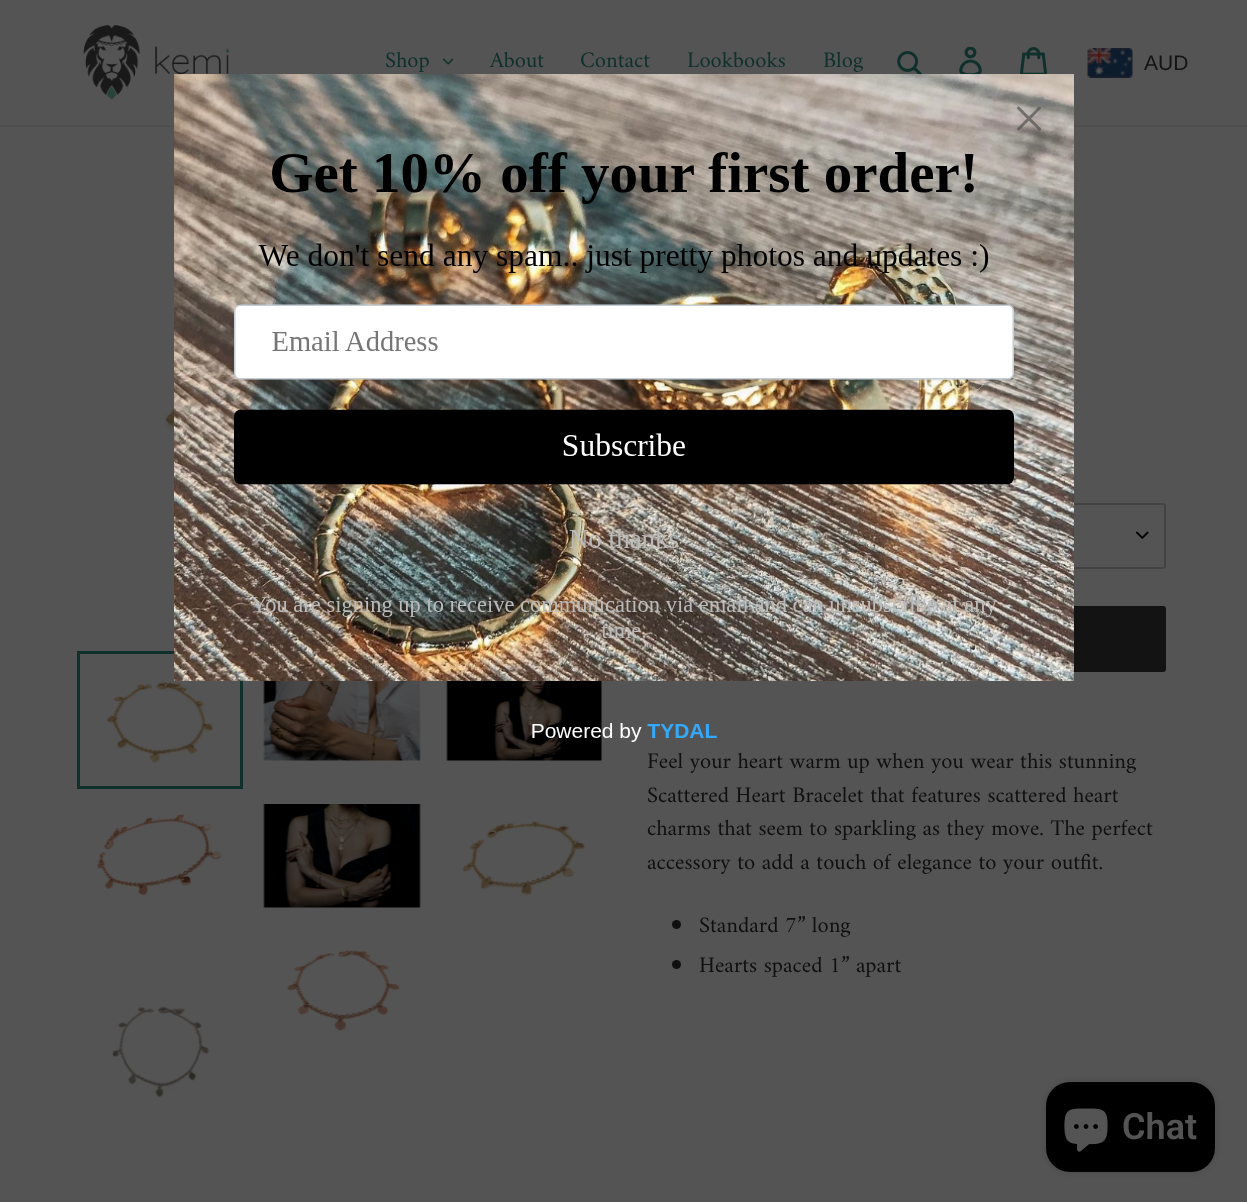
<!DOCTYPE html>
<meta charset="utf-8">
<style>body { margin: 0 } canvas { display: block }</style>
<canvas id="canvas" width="1247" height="1202"></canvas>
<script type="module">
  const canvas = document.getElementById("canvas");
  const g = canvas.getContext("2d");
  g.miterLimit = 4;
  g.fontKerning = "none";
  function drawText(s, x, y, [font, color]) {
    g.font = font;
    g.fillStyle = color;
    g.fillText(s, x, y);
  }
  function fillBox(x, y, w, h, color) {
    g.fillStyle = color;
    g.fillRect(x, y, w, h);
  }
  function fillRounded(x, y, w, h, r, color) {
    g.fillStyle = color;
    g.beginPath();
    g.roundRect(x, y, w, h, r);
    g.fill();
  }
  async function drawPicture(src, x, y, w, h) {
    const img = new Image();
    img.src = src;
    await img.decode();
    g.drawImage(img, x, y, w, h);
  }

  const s1 = ["22.5px Amiri", "#319286"];
  const s2 = ["21px Liberation Sans", "#403F3F"];
  const s3 = ["22.5px Amiri", "#333232"];
  const s4 = ["600 36px Roboto", "#FFFFFF"];

  fillBox(0, 0, 1247, 1202, "#FFFFFF");
  fillBox(0, 125, 1247, 2, "#EBEBEB");
  await drawPicture("pic2.png", 83, 25, 147, 75);
  drawText("Shop", 385, 67, s1);
  await drawPicture("pic3.png", 443, 58, 10, 7);
  drawText("About", 490, 67, s1);
  drawText("Contact", 580, 67, s1);
  drawText("Lookbooks", 687, 67, s1);
  drawText("Blog", 823, 67, s1);
  await drawPicture("pic4.png", 897, 51, 26, 23);
  await drawPicture("pic5.png", 959, 47, 23, 27);
  await drawPicture("pic6.png", 1020, 47, 27, 27);
  await drawPicture("pic7.png", 1087, 48, 46, 30);
  drawText("AUD", 1144, 70, s2);
  await drawPicture("pic8.png", 163, 291, 11, 275);
  g.strokeStyle = "#319286";
  g.lineWidth = 3;
  g.strokeRect(78.5, 652.5, 163, 135);
  await drawPicture("pic9.png", 105, 680, 111, 84);
  await drawPicture("pic10.png", 263, 681, 158, 80);
  await drawPicture("pic11.png", 446, 681, 156, 80);
  await drawPicture("pic12.png", 96, 814, 127, 84);
  await drawPicture("pic13.png", 263, 804, 158, 104);
  await drawPicture("pic14.png", 462, 821, 123, 75);
  await drawPicture("pic15.png", 286, 950, 114, 84);
  await drawPicture("pic16.png", 112, 1006, 98, 92);
  await drawPicture("pic17.png", 1136, 531, 13, 8);
  g.beginPath();
  g.roundRect(648, 504, 517, 64, 2);
  g.strokeStyle = "#CCCCCC";
  g.lineWidth = 2;
  g.stroke();
  fillRounded(647, 606, 519, 66, 3, "#3A3A3A");
  drawText("Feel your heart warm up when you wear this stunning", 647, 768, s3);
  drawText("Scattered Heart Bracelet that features scattered heart", 647, 802, s3);
  drawText("charms that seem to sparkling as they move. The perfect", 647, 835, s3);
  drawText("accessory to add a touch of elegance to your outfit.", 647, 869, s3);
  g.beginPath();
  g.arc(676.5, 924.5, 4.5, 0, Math.PI * 2);
  g.fill();
  drawText("Standard 7” long", 699, 932, s3);
  g.beginPath();
  g.arc(676.5, 964.5, 4.5, 0, Math.PI * 2);
  g.fill();
  drawText("Hearts spaced 1” apart", 699, 972, s3);
  g.fillStyle = "rgba(0, 0, 0, 0.15)";
  g.filter = "blur(4px)";
  g.beginPath();
  g.roundRect(1046, 1082, 169, 90, 24);
  g.fill();
  g.filter = "none";
  fillRounded(1046, 1082, 169, 90, 24, "#000000");
  await drawPicture("pic18.png", 1064, 1108, 44, 44);
  drawText("Chat", 1122, 1139, s4);
  await drawPicture("pic1.png", 0, 0, 1247, 1202);
</script>
